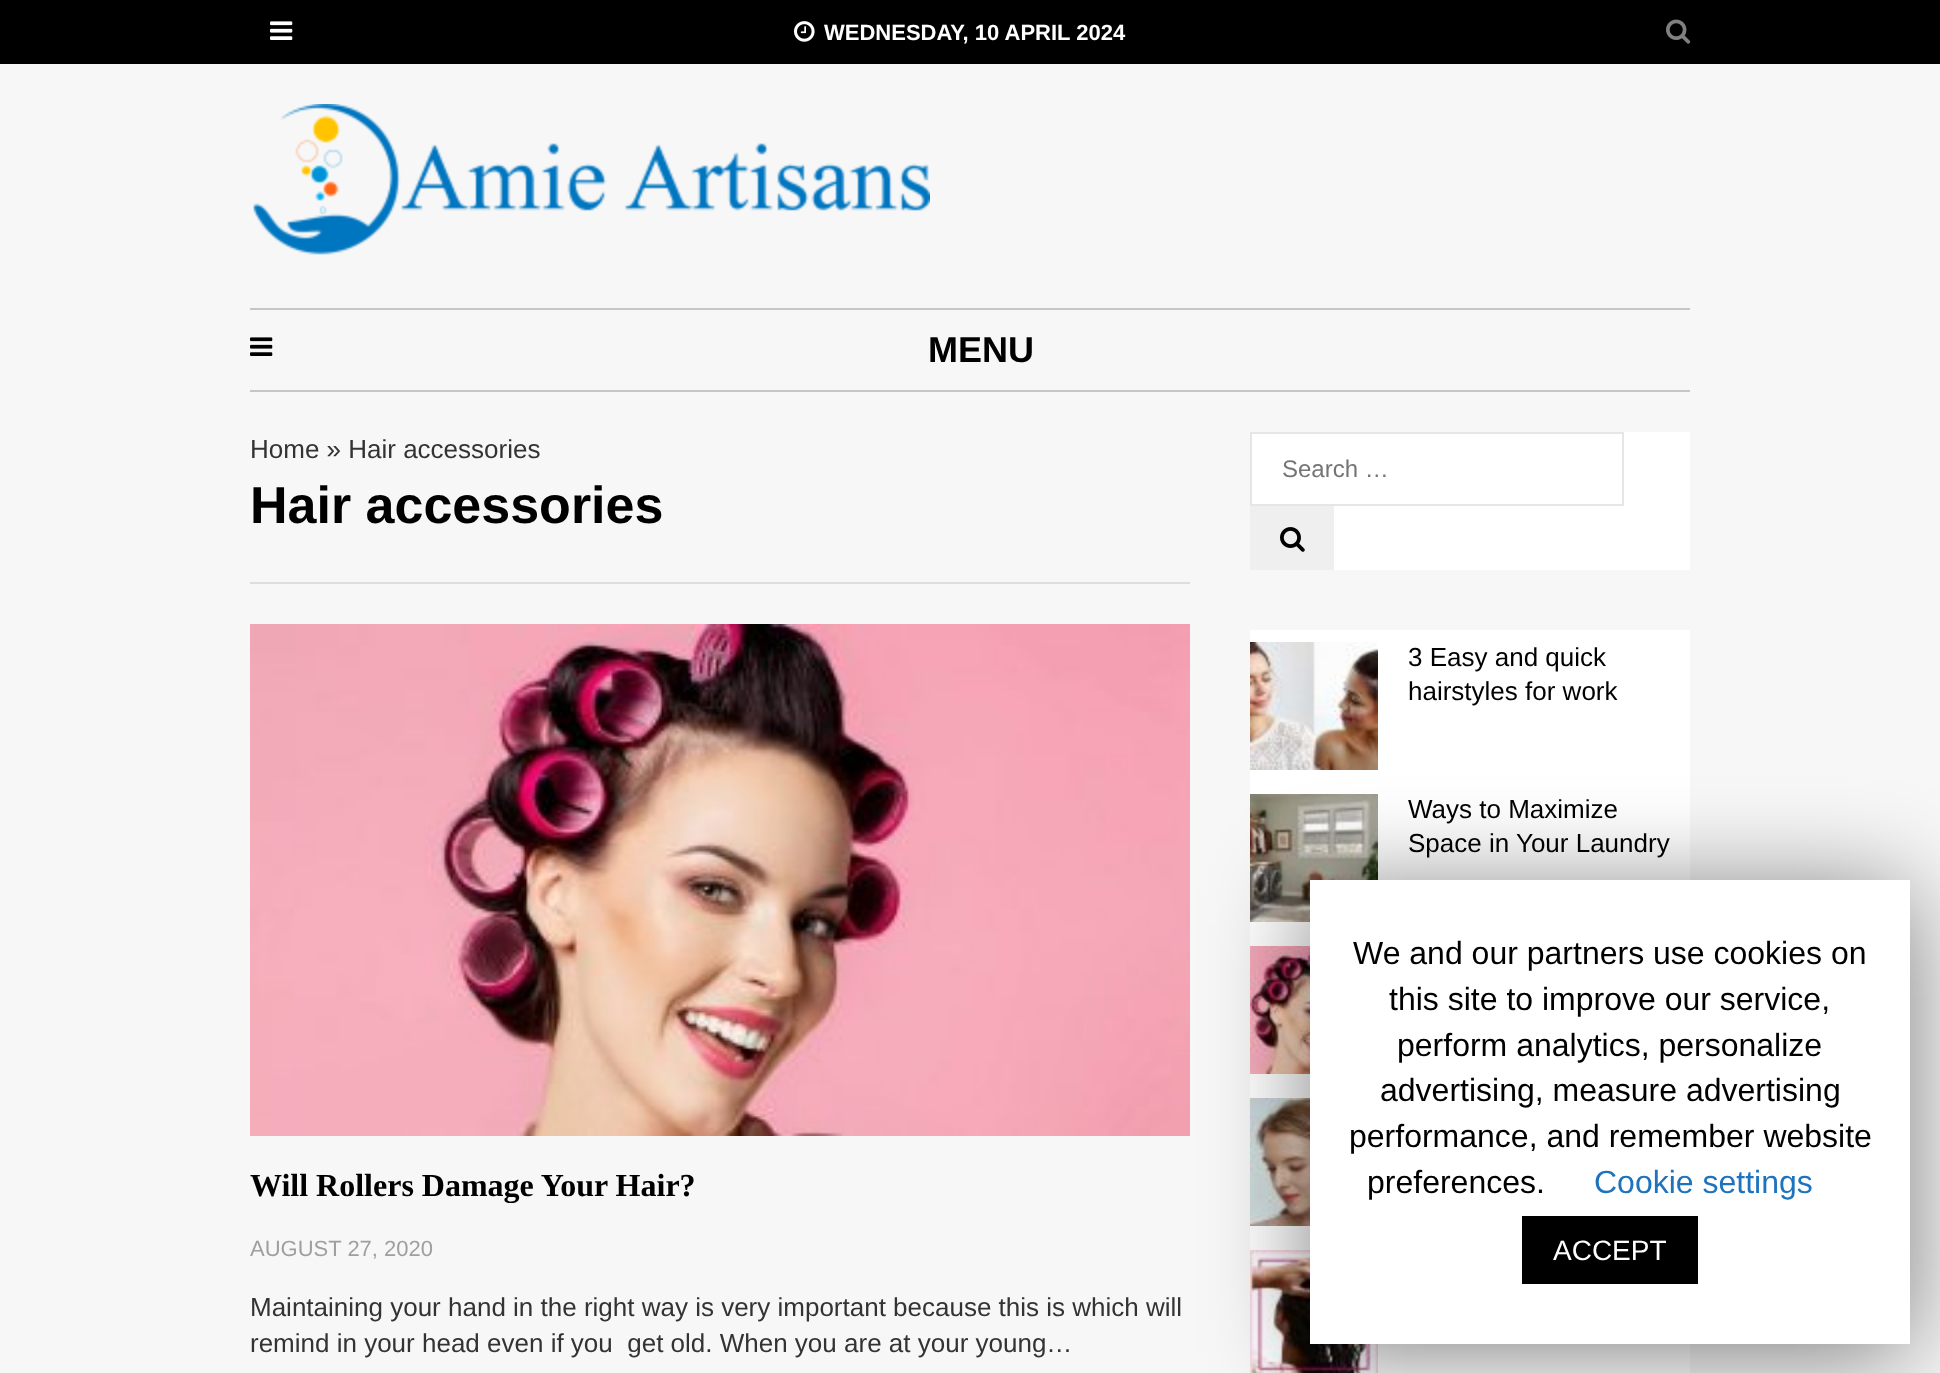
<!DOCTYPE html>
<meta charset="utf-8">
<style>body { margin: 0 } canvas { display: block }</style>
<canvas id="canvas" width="1940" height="1373"></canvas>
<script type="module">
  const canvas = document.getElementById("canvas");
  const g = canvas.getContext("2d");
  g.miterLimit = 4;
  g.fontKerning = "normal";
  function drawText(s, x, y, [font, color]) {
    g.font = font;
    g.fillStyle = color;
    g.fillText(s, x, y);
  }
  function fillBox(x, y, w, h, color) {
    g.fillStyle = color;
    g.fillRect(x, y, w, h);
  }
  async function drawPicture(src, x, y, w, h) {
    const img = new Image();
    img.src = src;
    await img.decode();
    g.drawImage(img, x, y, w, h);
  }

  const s1 = ["bold 22px Liberation Sans", "#FFFFFF"];
  const s2 = ["bold 36px Liberation Sans", "#000000"];
  const s3 = ["26px Liberation Sans", "#333333"];
  const s4 = ["bold 52px Liberation Sans", "#000000"];
  const s5 = ["bold 32px Liberation Serif", "#000000"];
  const s6 = ["22px Liberation Sans", "#9F9F9F"];
  const s7 = ["24px Liberation Sans", "#757575"];
  const s8 = ["26px Liberation Sans", "#000000"];
  const s9 = ["32px Liberation Sans", "#000000"];
  const s10 = ["32px Liberation Sans", "#1E73BE"];
  const s11 = ["28px Liberation Sans", "#FFFFFF"];

  fillBox(0, 0, 1940, 1373, "#F7F7F7");
  fillBox(0, 0, 1940, 64, "#000000");
  await drawPicture("pic1.png", 270, 21, 23, 19);
  await drawPicture("pic2.png", 794, 21, 21, 21);
  drawText("WEDNESDAY, 10 APRIL 2024", 824, 40, s1);
  await drawPicture("pic3.png", 1666, 19, 25, 25);
  await drawPicture("pic4.png", 253, 104, 677, 151);
  fillBox(250, 308, 1440, 2, "#C6C6C6");
  fillBox(250, 390, 1440, 2, "#C6C6C6");
  await drawPicture("pic5.png", 250, 337, 23, 19);
  drawText("MENU", 928, 362, s2);
  drawText("Home » Hair accessories", 250, 458, s3);
  fillBox(250, 582, 940, 2, "#DEDEDE");
  drawText("Hair accessories", 250, 523, s4);
  await drawPicture("pic6.png", 250, 624, 940, 512);
  drawText("Will Rollers Damage Your Hair?", 250, 1196, s5);
  drawText("AUGUST 27, 2020", 250, 1256, s6);
  drawText("Maintaining your hand in the right way is very important because this is which will", 250, 1316, s3);
  drawText("remind in your head even if you  get old. When you are at your young…", 250, 1352, s3);
  fillBox(1252, 432, 438, 138, "#FFFFFF");
  g.strokeStyle = "#E6E6E6";
  g.lineWidth = 2;
  g.strokeRect(1251, 433, 372, 72);
  drawText("Search …", 1282, 477, s7);
  fillBox(1250, 506, 84, 64, "#EFEFEF");
  await drawPicture("pic7.png", 1280, 527, 25, 25);
  fillBox(1250, 630, 440, 743, "#FFFFFF");
  await drawPicture("pic8.png", 1250, 642, 128, 128);
  drawText("3 Easy and quick", 1408, 666, s8);
  drawText("hairstyles for work", 1408, 700, s8);
  await drawPicture("pic9.png", 1250, 794, 128, 128);
  drawText("Ways to Maximize", 1408, 818, s8);
  drawText("Space in Your Laundry", 1408, 852, s8);
  await drawPicture("pic10.png", 1250, 946, 60, 128);
  await drawPicture("pic11.png", 1250, 1098, 60, 128);
  await drawPicture("pic12.png", 1250, 1250, 128, 123);
  g.fillStyle = "rgba(0, 0, 0, 0.5)";
  g.filter = "blur(50px)";
  g.beginPath();
  g.rect(1310, 890, 600, 464);
  g.fill();
  g.filter = "none";
  fillBox(1310, 880, 600, 464, "#FFFFFF");
  drawText("We and our partners use cookies on", 1353, 964, s9);
  drawText("this site to improve our service,", 1389, 1010, s9);
  drawText("perform analytics, personalize", 1397, 1056, s9);
  drawText("advertising, measure advertising", 1380, 1101, s9);
  drawText("performance, and remember website", 1349, 1147, s9);
  drawText("preferences.", 1367, 1193, s9);
  drawText("Cookie settings", 1594, 1193, s10);
  fillBox(1522, 1216, 176, 68, "#000000");
  drawText("ACCEPT", 1553, 1260, s11);
</script>
